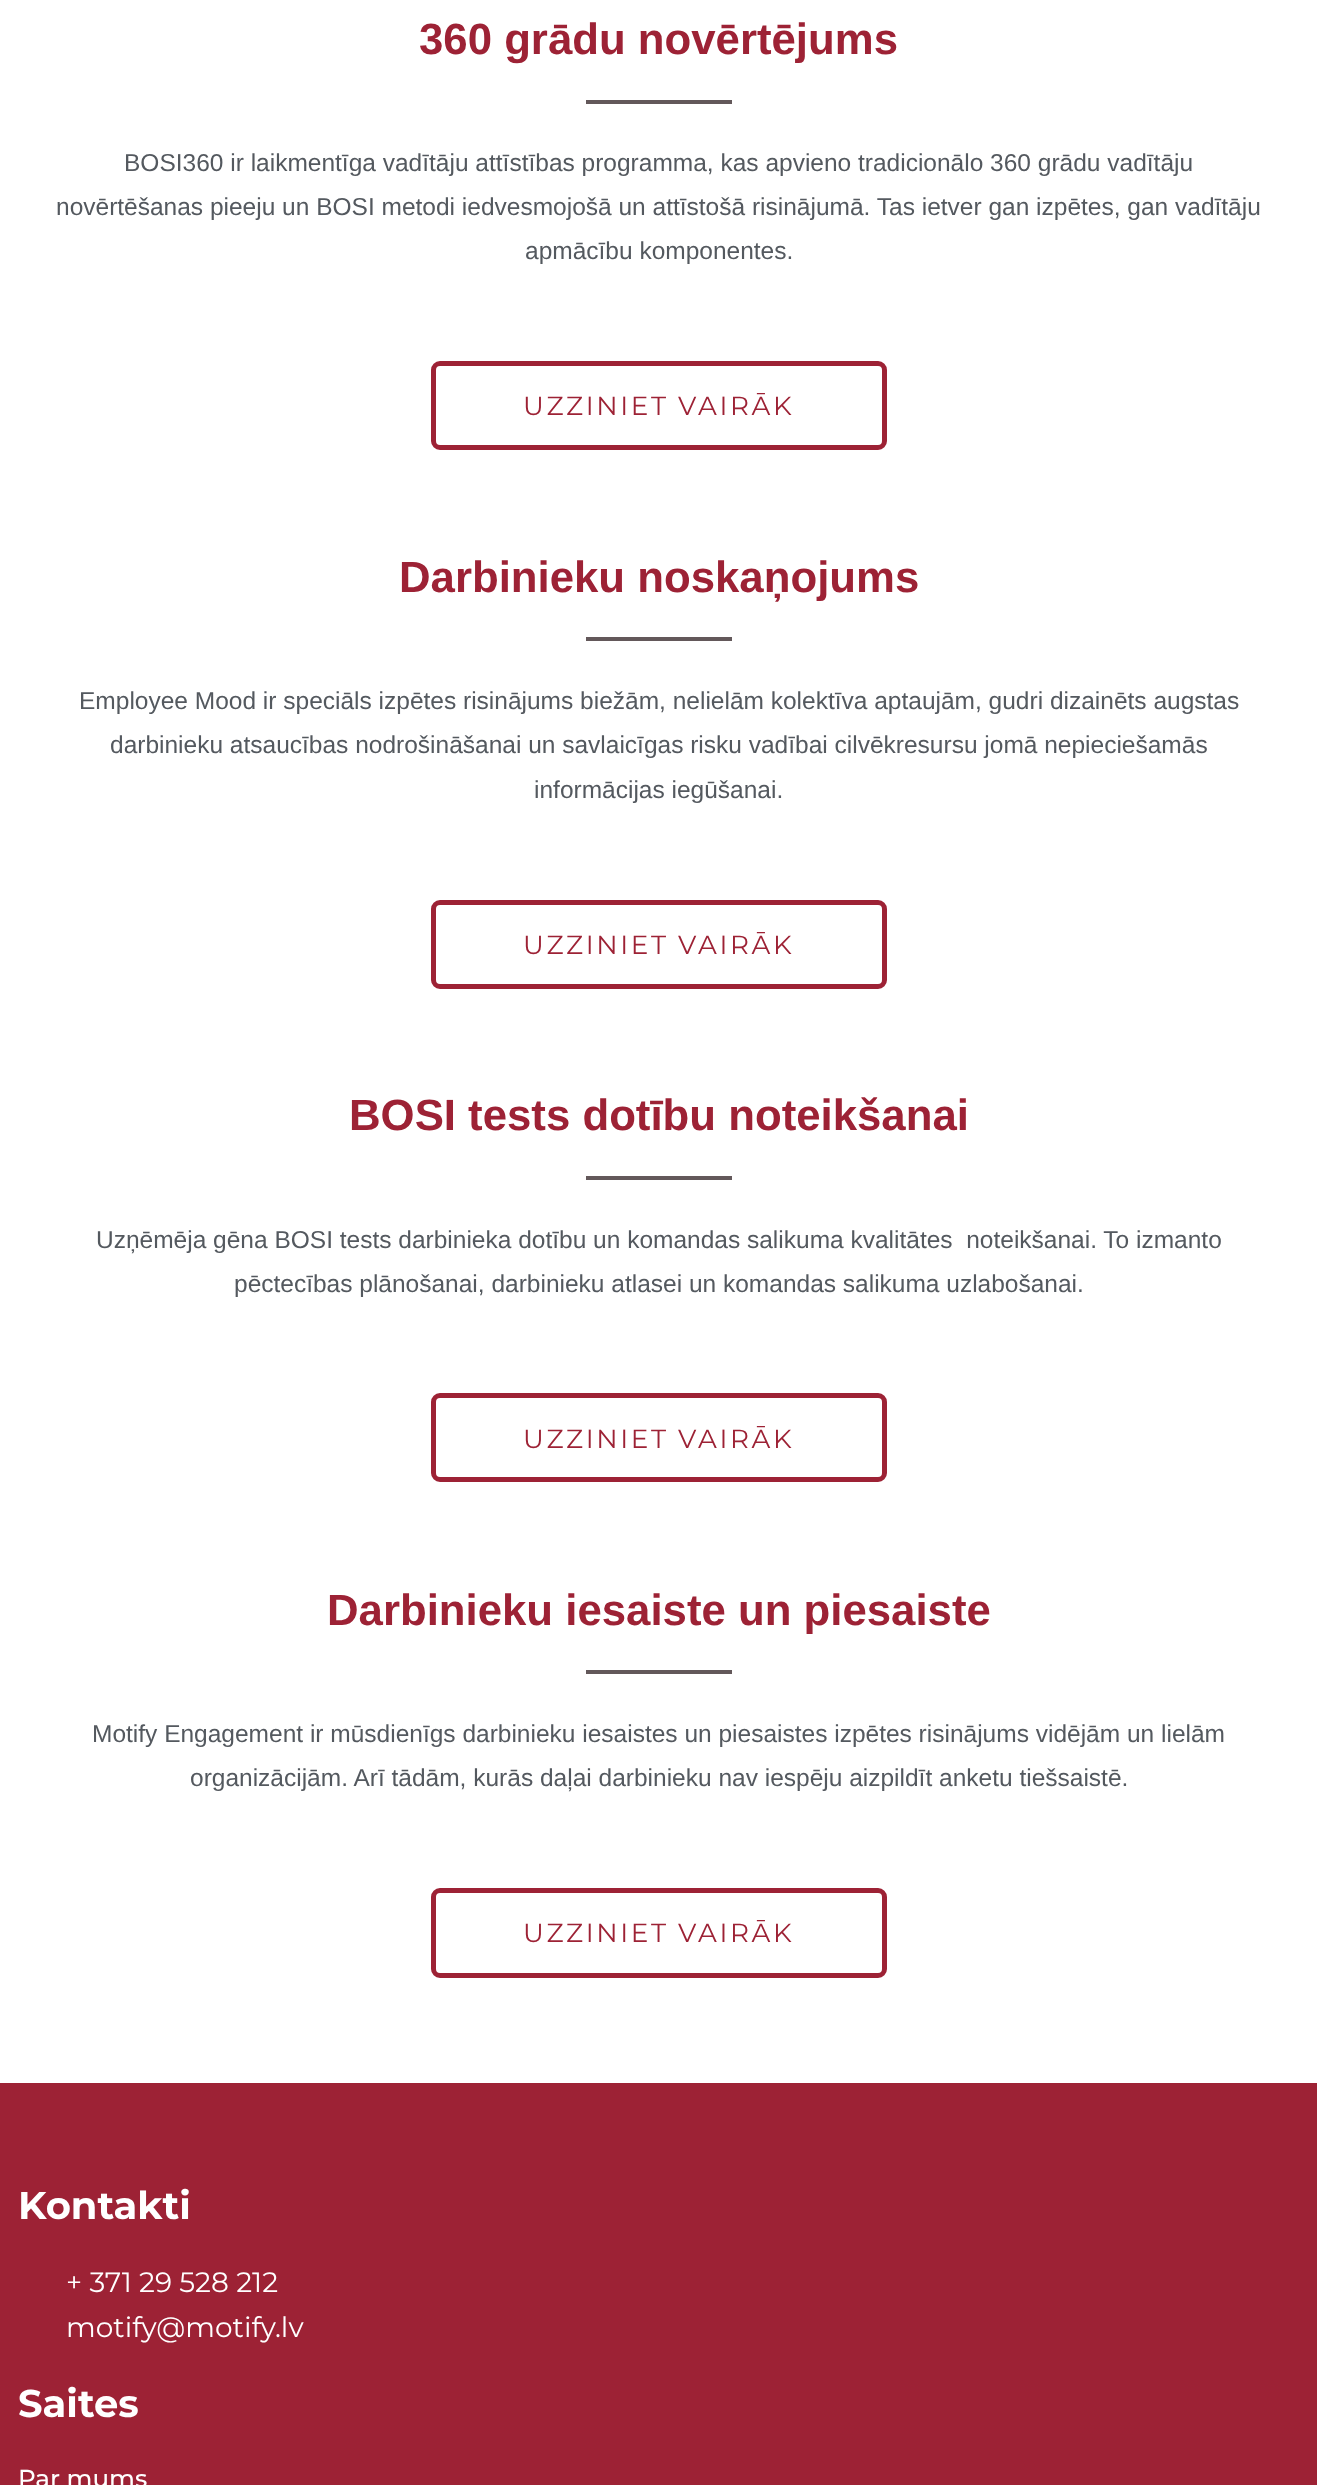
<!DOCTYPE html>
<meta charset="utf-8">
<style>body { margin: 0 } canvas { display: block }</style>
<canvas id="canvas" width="1317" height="2485"></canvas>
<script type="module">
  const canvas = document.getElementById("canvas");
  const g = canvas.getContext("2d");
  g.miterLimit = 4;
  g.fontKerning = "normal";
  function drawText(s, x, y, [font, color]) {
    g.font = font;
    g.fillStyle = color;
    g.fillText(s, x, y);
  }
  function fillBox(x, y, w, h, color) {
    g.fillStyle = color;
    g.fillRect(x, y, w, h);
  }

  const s1 = ["bold 43.75px Liberation Sans", "#9D2235"];
  const s2 = ["24.5px Liberation Sans", "#54595F"];
  const s3 = ["26.25px Montserrat", "#9D2235"];
  const s4 = ["bold 38.5px Montserrat", "#FFFFFF"];
  const s5 = ["28px Montserrat", "#FFFFFF"];
  const s6 = ["500 24.5px Montserrat", "#FFFFFF"];

  fillBox(0, 0, 1317, 2485, "#FFFFFF");
  drawText("360 grādu novērtējums", 419, 54, s1);
  fillBox(586, 100, 146, 4, "#63585A");
  drawText("BOSI360 ir laikmentīga vadītāju attīstības programma, kas apvieno tradicionālo 360 grādu vadītāju", 124, 171, s2);
  drawText("novērtēšanas pieeju un BOSI metodi iedvesmojošā un attīstošā risinājumā. Tas ietver gan izpētes, gan vadītāju", 56, 215, s2);
  drawText("apmācību komponentes.", 525, 259, s2);
  g.beginPath();
  g.roundRect(433.5, 363.5, 451, 84, 6.5);
  g.strokeStyle = "#9D2235";
  g.lineWidth = 5;
  g.stroke();
  g.letterSpacing = "2.6px";
  drawText("UZZINIET VAIRĀK", 523, 415, s3);
  g.letterSpacing = "0px";
  drawText("Darbinieku noskaņojums", 399, 592, s1);
  fillBox(586, 637, 146, 4, "#63585A");
  drawText("Employee Mood ir speciāls izpētes risinājums biežām, nelielām kolektīva aptaujām, gudri dizainēts augstas", 79, 709, s2);
  drawText("darbinieku atsaucības nodrošināšanai un savlaicīgas risku vadībai cilvēkresursu jomā nepieciešamās", 110, 753, s2);
  drawText("informācijas iegūšanai.", 534, 798, s2);
  g.beginPath();
  g.roundRect(433.5, 902.5, 451, 84, 6.5);
  g.stroke();
  g.letterSpacing = "2.6px";
  drawText("UZZINIET VAIRĀK", 523, 954, s3);
  g.letterSpacing = "0px";
  drawText("BOSI tests dotību noteikšanai", 349, 1130, s1);
  fillBox(586, 1176, 146, 4, "#63585A");
  drawText("Uzņēmēja gēna BOSI tests darbinieka dotību un komandas salikuma kvalitātes  noteikšanai. To izmanto", 96, 1248, s2);
  drawText("pēctecības plānošanai, darbinieku atlasei un komandas salikuma uzlabošanai.", 234, 1292, s2);
  g.beginPath();
  g.roundRect(433.5, 1395.5, 451, 84, 6.5);
  g.stroke();
  g.letterSpacing = "2.6px";
  drawText("UZZINIET VAIRĀK", 523, 1448, s3);
  g.letterSpacing = "0px";
  drawText("Darbinieku iesaiste un piesaiste", 327, 1625, s1);
  fillBox(586, 1670, 146, 4, "#63585A");
  drawText("Motify Engagement ir mūsdienīgs darbinieku iesaistes un piesaistes izpētes risinājums vidējām un lielām", 92, 1742, s2);
  drawText("organizācijām. Arī tādām, kurās daļai darbinieku nav iespēju aizpildīt anketu tiešsaistē.", 190, 1786, s2);
  g.beginPath();
  g.roundRect(433.5, 1890.5, 451, 85, 6.5);
  g.stroke();
  g.letterSpacing = "2.6px";
  drawText("UZZINIET VAIRĀK", 523, 1942, s3);
  fillBox(0, 2083, 1317, 402, "#9D2235");
  g.letterSpacing = "0px";
  drawText("Kontakti", 18, 2219, s4);
  drawText("+ 371 29 528 212", 66, 2292, s5);
  drawText("motify@motify.lv", 66, 2337, s5);
  drawText("Saites", 18, 2417, s4);
  drawText("Par mums", 18, 2487, s6);
</script>
